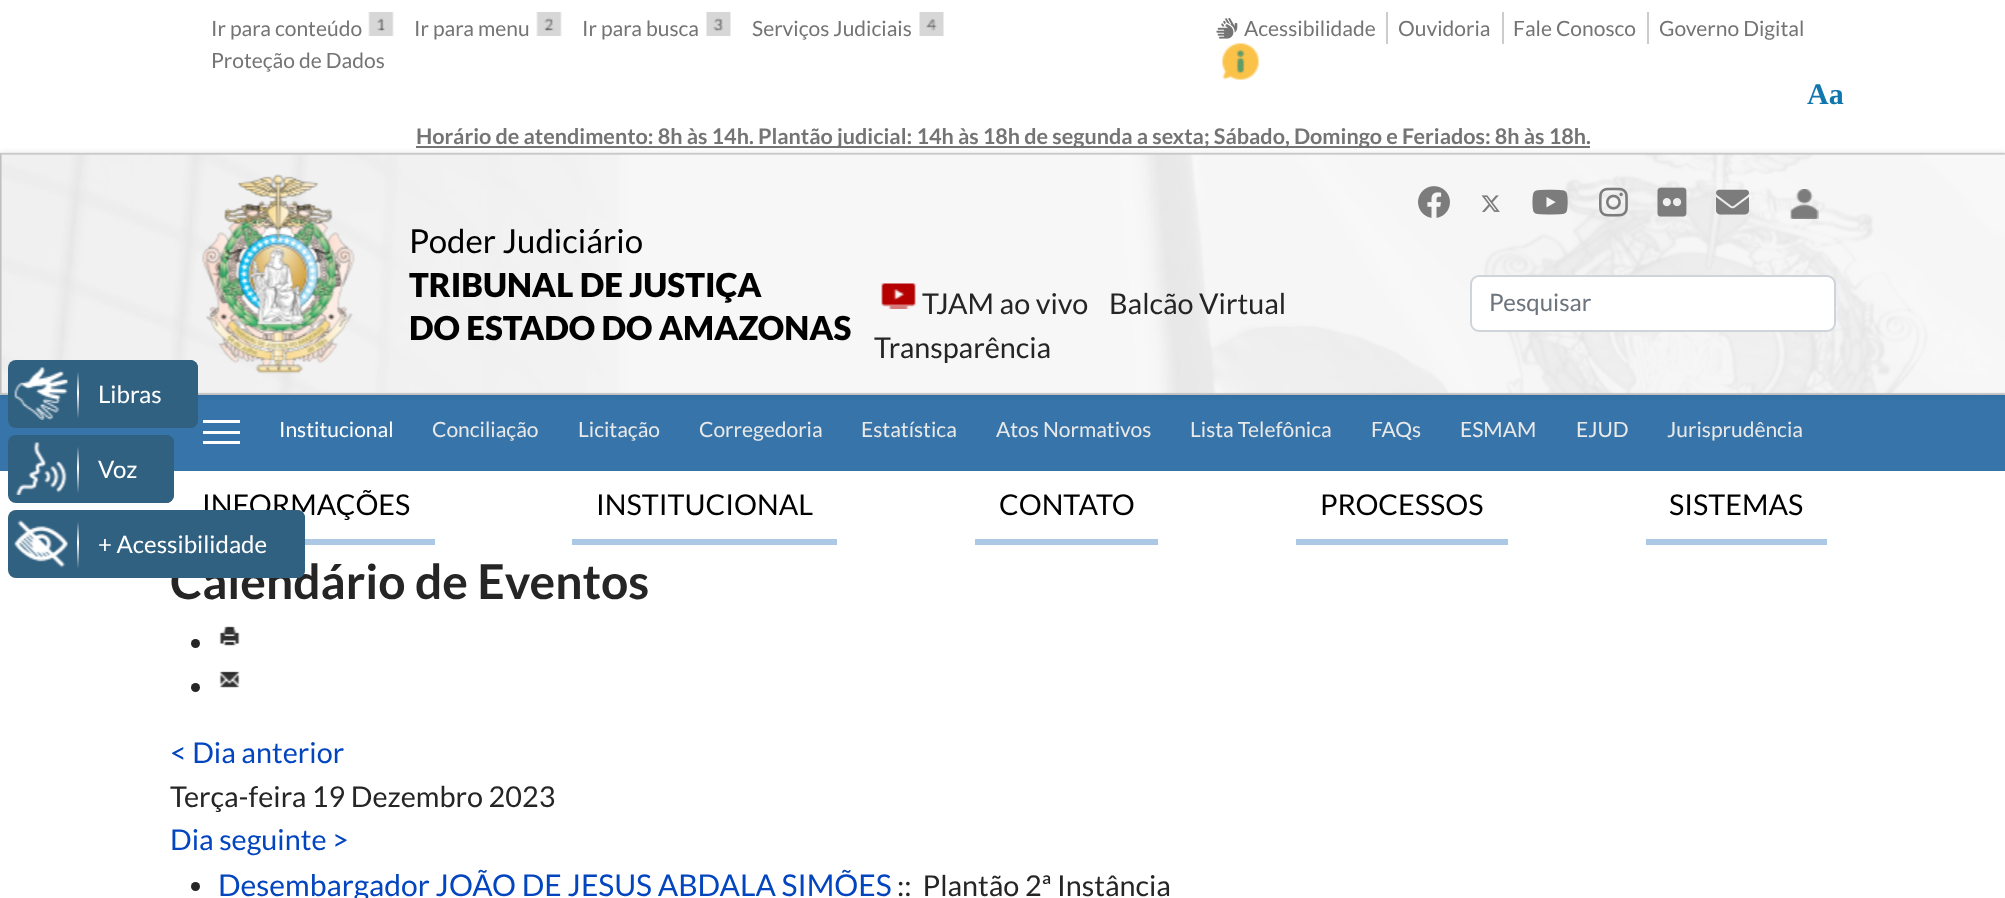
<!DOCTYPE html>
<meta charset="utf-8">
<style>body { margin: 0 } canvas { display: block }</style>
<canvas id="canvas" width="2005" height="898"></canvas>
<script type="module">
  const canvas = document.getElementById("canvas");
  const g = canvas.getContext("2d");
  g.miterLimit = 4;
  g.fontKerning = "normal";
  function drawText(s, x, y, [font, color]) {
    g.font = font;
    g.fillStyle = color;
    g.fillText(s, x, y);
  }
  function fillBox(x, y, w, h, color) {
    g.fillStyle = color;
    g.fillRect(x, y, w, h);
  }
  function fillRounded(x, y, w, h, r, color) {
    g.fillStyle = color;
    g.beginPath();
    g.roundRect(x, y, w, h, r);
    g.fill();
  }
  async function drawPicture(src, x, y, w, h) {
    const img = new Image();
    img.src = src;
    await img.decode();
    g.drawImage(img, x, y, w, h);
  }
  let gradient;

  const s1 = ["21px Lato", "#747474"];
  const s2 = ["bold 30px Liberation Serif", "#1176AE"];
  const s3 = ["bold 21.6px Lato", "#747474"];
  const s4 = ["33px Lato", "#000000"];
  const s5 = ["900 33px Lato", "#000000"];
  const s6 = ["28.75px Lato", "#252525"];
  const s7 = ["24px Lato", "#6C757D"];
  const s8 = ["21px Lato", "#FFFFFF"];
  const s9 = ["21px Lato", "#E9E9E9"];
  const s10 = ["28.75px Lato", "#000000"];
  const s11 = ["bold 48px Lato", "#252525"];
  const s12 = ["28.75px Lato", "#0345BF"];
  const s13 = ["30px Lato", "#0345BF"];
  const s14 = ["24px Lato", "#FFFFFF"];

  fillBox(0, 0, 2005, 898, "#FFFFFF");
  drawText("Ir para conteúdo", 211, 36, s1);
  await drawPicture("pic1.png", 368, 12, 26, 24);
  drawText("Ir para menu", 414, 36, s1);
  await drawPicture("pic2.png", 536, 12, 26, 24);
  drawText("Ir para busca", 582, 36, s1);
  await drawPicture("pic3.png", 706, 12, 25, 24);
  drawText("Serviços Judiciais", 752, 36, s1);
  await drawPicture("pic4.png", 919, 12, 25, 24);
  drawText("Proteção de Dados", 211, 68, s1);
  await drawPicture("pic5.png", 1216, 17, 22, 22);
  drawText("Acessibilidade", 1244, 36, s1);
  fillBox(1386, 12, 2, 32, "#CCCCCC");
  drawText("Ouvidoria", 1398, 36, s1);
  fillBox(1502, 12, 2, 32, "#CCCCCC");
  drawText("Fale Conosco", 1513, 36, s1);
  fillBox(1647, 12, 2, 32, "#CCCCCC");
  drawText("Governo Digital", 1659, 36, s1);
  await drawPicture("pic6.png", 1222, 43, 37, 37);
  drawText("Aa", 1807, 104, s2);
  fillBox(416, 146, 1174, 2, "#747474");
  drawText("Horário de atendimento: 8h às 14h. Plantão judicial: 14h às 18h de segunda a sexta; Sábado, Domingo e Feriados: 8h às 18h.", 416, 144, s3);
  fillBox(0, 395, 2005, 76, "#3674A9");
  g.fillStyle = "rgba(0, 0, 0, 0.1)";
  g.filter = "blur(3px)";
  g.beginPath();
  g.rect(0, 153, 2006, 242);
  g.fill();
  g.filter = "none";
  fillBox(0, 153, 2005, 242, "#F6F6F6");
  await drawPicture("pic7.png", 0, 152, 2005, 243);
  await drawPicture("pic8.png", 202, 174, 153, 200);
  drawText("Poder Judiciário", 409, 253, s4);
  drawText("TRIBUNAL DE JUSTIÇA", 409, 297, s5);
  drawText("DO ESTADO DO AMAZONAS", 409, 340, s5);
  await drawPicture("pic9.png", 1418, 186, 32, 32);
  await drawPicture("pic10.png", 1481, 195, 19, 17);
  await drawPicture("pic11.png", 1532, 189, 36, 26);
  await drawPicture("pic12.png", 1599, 187, 29, 30);
  await drawPicture("pic13.png", 1657, 187, 30, 30);
  await drawPicture("pic14.png", 1716, 189, 33, 26);
  await drawPicture("pic15.png", 1790, 189, 29, 30);
  await drawPicture("pic16.png", 881, 283, 35, 26);
  drawText("TJAM ao vivo", 922, 314, s6);
  drawText("Balcão Virtual", 1109, 314, s6);
  drawText("Transparência", 874, 358, s6);
  g.fillStyle = "#FFFFFF";
  g.beginPath();
  g.roundRect(1471, 276, 364, 55, 8);
  g.fill();
  g.strokeStyle = "#CED4DA";
  g.lineWidth = 2;
  g.stroke();
  drawText("Pesquisar", 1489, 311, s7);
  fillBox(203, 420, 37, 3, "#FFFFFF");
  fillBox(203, 431, 37, 3, "#FFFFFF");
  fillBox(203, 441, 37, 3, "#FFFFFF");
  drawText("Institucional", 279, 437, s8);
  drawText("Conciliação", 432, 437, s9);
  drawText("Licitação", 578, 437, s9);
  drawText("Corregedoria", 699, 437, s9);
  drawText("Estatística", 861, 437, s9);
  drawText("Atos Normativos", 996, 437, s9);
  drawText("Lista Telefônica", 1190, 437, s9);
  drawText("FAQs", 1371, 437, s9);
  drawText("ESMAM", 1460, 437, s9);
  drawText("EJUD", 1576, 437, s9);
  drawText("Jurisprudência", 1667, 437, s9);
  fillBox(305, 539, 130, 6, "#ABC8E5");
  drawText("INFORMAÇÕES", 202, 515, s10);
  fillBox(572, 539, 265, 6, "#ABC8E5");
  drawText("INSTITUCIONAL", 596, 515, s10);
  fillBox(975, 539, 183, 6, "#ABC8E5");
  drawText("CONTATO", 999, 515, s10);
  fillBox(1296, 539, 212, 6, "#ABC8E5");
  drawText("PROCESSOS", 1320, 515, s10);
  fillBox(1646, 539, 181, 6, "#ABC8E5");
  drawText("SISTEMAS", 1669, 515, s10);
  drawText("Calendário de Eventos", 170, 599, s11);
  g.beginPath();
  g.arc(195.5, 643.5, 4.5, 0, Math.PI * 2);
  g.fill();
  await drawPicture("pic17.png", 219, 626, 21, 20);
  g.beginPath();
  g.arc(195.5, 687.5, 4.5, 0, Math.PI * 2);
  g.fill();
  await drawPicture("pic18.png", 219, 671, 21, 17);
  drawText("< Dia anterior", 170, 763, s12);
  drawText("Terça-feira 19 Dezembro 2023", 170, 807, s6);
  drawText("Dia seguinte >", 170, 850, s12);
  g.fillStyle = "#252525";
  g.beginPath();
  g.arc(195.5, 886.5, 4.5, 0, Math.PI * 2);
  g.fill();
  drawText("Desembargador JOÃO DE JESUS ABDALA SIMÕES", 218, 896, s13);
  drawText("::  Plantão 2ª Instância", 897, 896, s6);
  fillRounded(8, 360, 190, 68, 8, "#316181");
  await drawPicture("pic19.png", 14, 367, 54, 53);
  g.beginPath();
  g.roundRect(68, 360, 130, 68, [0, 8, 8, 0]);
  g.fill();
  gradient = g.createLinearGradient(77, 428, 77, 360);
  gradient.addColorStop(0.14, "#316181");
  gradient.addColorStop(0.52, "#FFFFFF");
  gradient.addColorStop(0.83, "#316181");
  g.fillStyle = gradient;
  g.fillRect(77, 372, 2, 46);
  drawText("Libras", 98, 403, s14);
  fillRounded(8, 435, 166, 68, 8, "#316181");
  await drawPicture("pic20.png", 15, 442, 52, 53);
  g.beginPath();
  g.roundRect(68, 435, 106, 68, [0, 8, 8, 0]);
  g.fill();
  gradient = g.createLinearGradient(77, 503, 77, 435);
  gradient.addColorStop(0.14, "#316181");
  gradient.addColorStop(0.52, "#FFFFFF");
  gradient.addColorStop(0.83, "#316181");
  g.fillStyle = gradient;
  g.fillRect(77, 447, 2, 46);
  drawText("Voz", 98, 478, s14);
  fillRounded(8, 510, 297, 68, 8, "#316181");
  await drawPicture("pic21.png", 14, 520, 54, 48);
  g.beginPath();
  g.roundRect(68, 510, 237, 68, [0, 8, 8, 0]);
  g.fill();
  gradient = g.createLinearGradient(77, 578, 77, 510);
  gradient.addColorStop(0.14, "#316181");
  gradient.addColorStop(0.52, "#FFFFFF");
  gradient.addColorStop(0.83, "#316181");
  g.fillStyle = gradient;
  g.fillRect(77, 522, 2, 46);
  drawText("+ Acessibilidade", 98, 553, s14);
</script>
